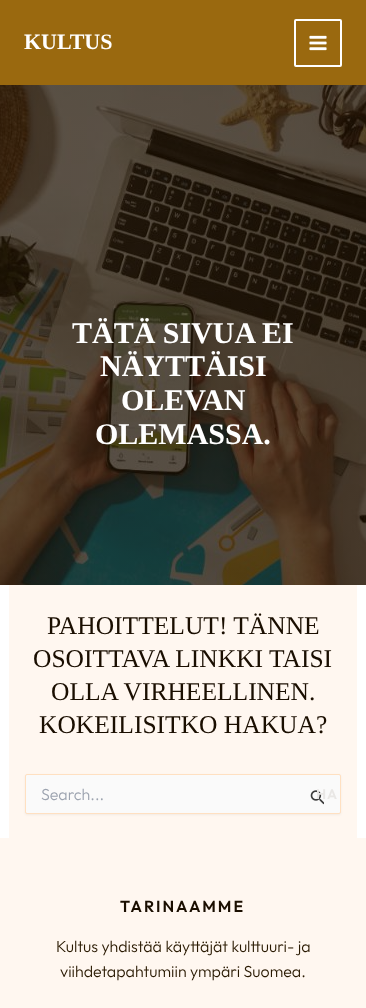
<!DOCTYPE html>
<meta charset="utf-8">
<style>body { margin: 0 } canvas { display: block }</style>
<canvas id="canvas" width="366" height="1008"></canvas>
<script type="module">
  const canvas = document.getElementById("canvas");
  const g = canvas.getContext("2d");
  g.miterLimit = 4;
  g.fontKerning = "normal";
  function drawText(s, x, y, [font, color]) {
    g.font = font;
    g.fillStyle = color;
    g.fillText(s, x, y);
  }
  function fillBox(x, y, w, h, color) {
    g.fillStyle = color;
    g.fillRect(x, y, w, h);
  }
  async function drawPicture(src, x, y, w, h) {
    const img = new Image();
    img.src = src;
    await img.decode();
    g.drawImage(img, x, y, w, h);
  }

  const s1 = ["bold 22px Liberation Serif", "#FFFFFF"];
  const s2 = ["bold 30px Liberation Serif", "#FFFFFF"];
  const s3 = ["25.5px Liberation Serif", "#1A0E00"];
  const s4 = ["300 16px Outfit", "#9CA3AF"];
  const s5 = ["600 14px Outfit", "#E9E7E5"];
  const s6 = ["600 16px Outfit", "#1A0E00"];
  const s7 = ["300 16px Outfit", "#291901"];

  fillBox(0, 0, 366, 1008, "#FFFFFF");
  fillBox(0, 0, 366, 85, "#9A690F");
  drawText("KULTUS", 24, 49, s1);
  g.beginPath();
  g.roundRect(295, 20, 46, 46, 1);
  g.strokeStyle = "#FFFFFF";
  g.lineWidth = 2;
  g.stroke();
  await drawPicture("pic1.png", 309, 35, 18, 16);
  await drawPicture("pic2.png", 0, 85, 366, 500);
  drawText("TÄTÄ SIVUA EI", 72, 343, s2);
  drawText("NÄYTTÄISI", 100, 376, s2);
  drawText("OLEVAN", 121, 410, s2);
  drawText("OLEMASSA.", 95, 444, s2);
  fillBox(9, 585, 348, 253, "#FFF7F0");
  drawText("PAHOITTELUT! TÄNNE", 47, 634, s3);
  drawText("OSOITTAVA LINKKI TAISI", 33, 667, s3);
  drawText("OLLA VIRHEELLINEN.", 51, 700, s3);
  drawText("KOKEILISITKO HAKUA?", 39, 733, s3);
  g.fillStyle = "rgba(0, 0, 0, 0.05)";
  g.filter = "blur(1px)";
  g.beginPath();
  g.roundRect(25, 775, 316, 40, 2);
  g.fill();
  g.filter = "none";
  g.fillStyle = "#FAFAFA";
  g.beginPath();
  g.roundRect(25.5, 774.5, 315, 39, 1.5);
  g.fill();
  g.strokeStyle = "#FFE0C1";
  g.lineWidth = 1;
  g.stroke();
  drawText("Search...", 41, 800, s4);
  await drawPicture("pic3.png", 310, 790, 14, 15);
  g.letterSpacing = "1px";
  drawText("HA", 316, 799, s5);
  fillBox(0, 838, 366, 170, "#FFF7F0");
  g.letterSpacing = "2px";
  drawText("TARINAAMME", 120, 912, s6);
  g.letterSpacing = "0px";
  drawText("Kultus yhdistää käyttäjät kulttuuri- ja", 56, 952, s7);
  drawText("viihdetapahtumiin ympäri Suomea.", 60, 977, s7);
</script>
